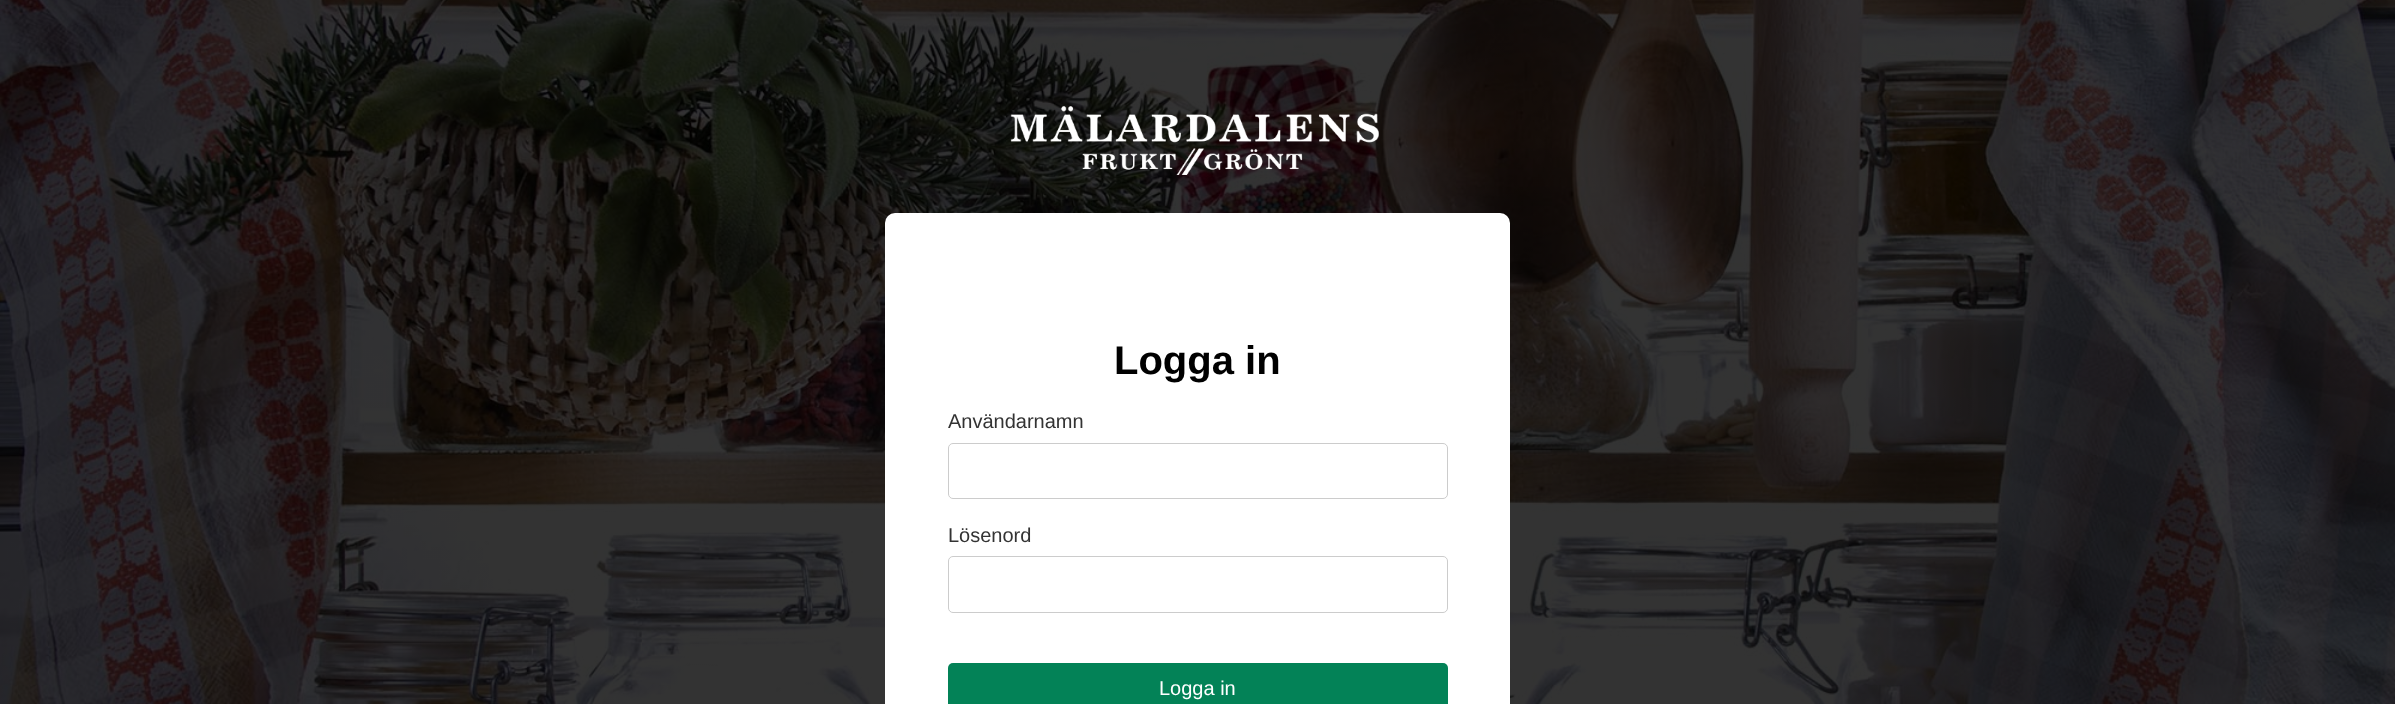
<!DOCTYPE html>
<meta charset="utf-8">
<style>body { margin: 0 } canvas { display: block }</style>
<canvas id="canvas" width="2395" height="704"></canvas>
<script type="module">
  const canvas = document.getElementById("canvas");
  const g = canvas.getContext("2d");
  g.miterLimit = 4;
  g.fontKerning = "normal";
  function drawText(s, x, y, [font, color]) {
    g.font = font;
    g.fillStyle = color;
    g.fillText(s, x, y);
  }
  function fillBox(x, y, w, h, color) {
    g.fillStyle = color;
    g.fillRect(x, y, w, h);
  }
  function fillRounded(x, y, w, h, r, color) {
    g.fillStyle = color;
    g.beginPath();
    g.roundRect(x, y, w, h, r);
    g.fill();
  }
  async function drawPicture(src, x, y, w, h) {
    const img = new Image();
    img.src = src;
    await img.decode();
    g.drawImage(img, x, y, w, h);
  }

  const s1 = ["bold 40px Liberation Sans", "#000000"];
  const s2 = ["20px Liberation Sans", "#333333"];
  const s3 = ["20px Liberation Sans", "#FFFFFF"];

  fillBox(0, 0, 2395, 704, "#FFFFFF");
  await drawPicture("pic1.png", 0, 0, 2395, 704);
  await drawPicture("pic2.png", 1010, 106, 369, 69);
  fillRounded(885, 213, 625, 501, 10, "#FFFFFF");
  drawText("Logga in", 1114, 374, s1);
  drawText("Användarnamn", 948, 428, s2);
  g.beginPath();
  g.roundRect(948.5, 443.5, 499, 55, 4.5);
  g.strokeStyle = "#CCCCCC";
  g.stroke();
  drawText("Lösenord", 948, 542, s2);
  g.beginPath();
  g.roundRect(948.5, 556.5, 499, 56, 4.5);
  g.stroke();
  fillRounded(948, 663, 500, 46, 5, "#038257");
  drawText("Logga in", 1159, 695, s3);
</script>
